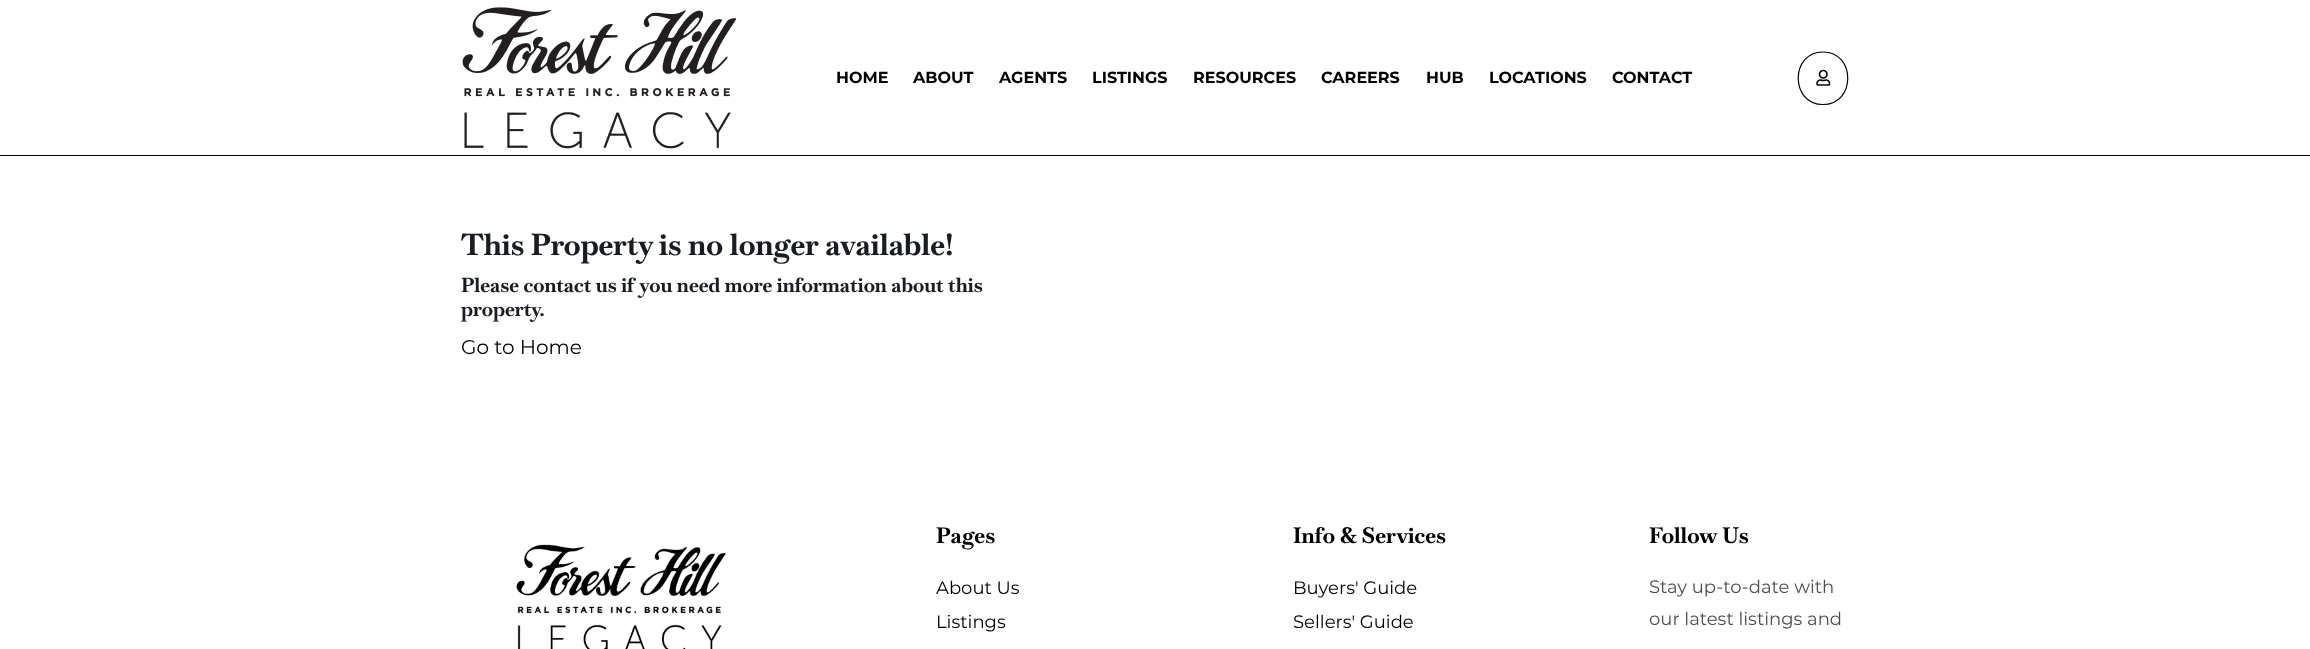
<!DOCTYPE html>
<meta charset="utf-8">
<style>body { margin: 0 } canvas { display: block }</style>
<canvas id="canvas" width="2310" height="649"></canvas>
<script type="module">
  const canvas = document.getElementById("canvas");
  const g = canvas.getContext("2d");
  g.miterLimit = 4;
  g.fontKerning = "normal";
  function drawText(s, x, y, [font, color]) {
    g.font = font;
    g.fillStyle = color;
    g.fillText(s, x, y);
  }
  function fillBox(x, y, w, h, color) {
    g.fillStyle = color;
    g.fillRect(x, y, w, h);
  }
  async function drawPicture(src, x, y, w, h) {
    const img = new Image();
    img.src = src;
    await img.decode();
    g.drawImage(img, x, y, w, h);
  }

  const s1 = ["bold 16px Montserrat", "#000000"];
  const s2 = ["bold 30px Baskervville", "#191C20"];
  const s3 = ["bold 20px Baskervville", "#191C20"];
  const s4 = ["20px Montserrat", "#000000"];
  const s5 = ["bold 22px Baskervville", "#000000"];
  const s6 = ["18px Montserrat", "#000000"];
  const s7 = ["18px Montserrat", "#4D4D4D"];

  fillBox(0, 0, 2310, 649, "#FFFFFF");
  fillBox(0, 155, 2310, 1, "#000000");
  await drawPicture("pic1.png", 462, 7, 274, 142);
  drawText("HOME", 836, 83, s1);
  drawText("ABOUT", 913, 83, s1);
  drawText("AGENTS", 999, 83, s1);
  drawText("LISTINGS", 1092, 83, s1);
  drawText("RESOURCES", 1193, 83, s1);
  drawText("CAREERS", 1321, 83, s1);
  drawText("HUB", 1426, 83, s1);
  drawText("LOCATIONS", 1489, 83, s1);
  drawText("CONTACT", 1612, 83, s1);
  g.beginPath();
  g.moveTo(1823, 52);
  g.bezierCurveTo(1856, 52, 1856, 104.5, 1823, 104.5);
  g.bezierCurveTo(1790, 104.5, 1790, 52, 1823, 52);
  g.closePath();
  g.strokeStyle = "#000000";
  g.lineWidth = 1.2;
  g.stroke();
  await drawPicture("pic2.png", 1816, 69, 15, 17);
  drawText("This Property is no longer available!", 461, 255, s2);
  drawText("Please contact us if you need more information about this", 461, 292, s3);
  drawText("property.", 461, 316, s3);
  drawText("Go to Home", 461, 354, s4);
  await drawPicture("pic3.png", 516, 544, 210, 105);
  drawText("Pages", 936, 543, s5);
  drawText("About Us", 936, 594, s6);
  drawText("Listings", 936, 628, s6);
  drawText("Info & Services", 1293, 543, s5);
  drawText("Buyers' Guide", 1293, 594, s6);
  drawText("Sellers' Guide", 1293, 628, s6);
  drawText("Follow Us", 1649, 543, s5);
  drawText("Stay up-to-date with", 1649, 593, s7);
  drawText("our latest listings and", 1649, 625, s7);
</script>
